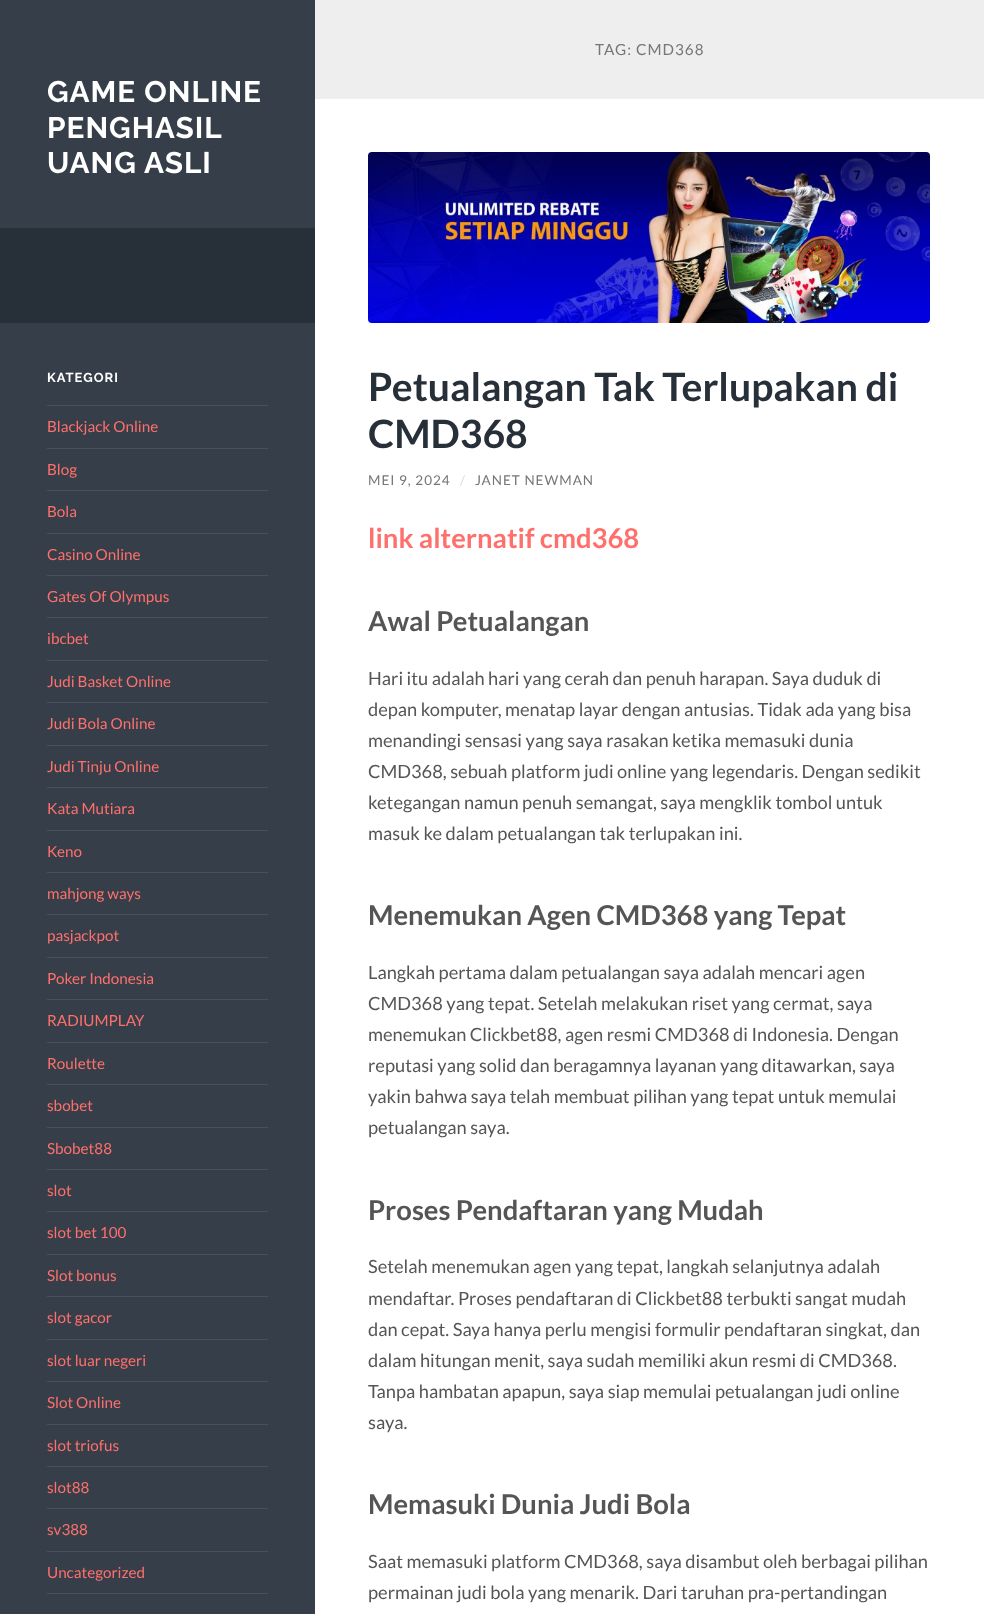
<!DOCTYPE html>
<meta charset="utf-8">
<style>body { margin: 0 } canvas { display: block }</style>
<canvas id="canvas" width="984" height="1614"></canvas>
<script type="module">
  const canvas = document.getElementById("canvas");
  const g = canvas.getContext("2d");
  g.miterLimit = 4;
  g.fontKerning = "normal";
  function drawText(s, x, y, [font, color]) {
    g.font = font;
    g.fillStyle = color;
    g.fillText(s, x, y);
  }
  function fillBox(x, y, w, h, color) {
    g.fillStyle = color;
    g.fillRect(x, y, w, h);
  }
  async function drawPicture(src, x, y, w, h) {
    const img = new Image();
    img.src = src;
    await img.decode();
    g.drawImage(img, x, y, w, h);
  }

  const s1 = ["100 29.75px Raleway", "#FFFFFF"];
  const s2 = ["100 13px Raleway", "#FFFFFF"];
  const s3 = ["15.25px Lato", "#FF706C"];
  const s4 = ["15.25px Lato", "#767676"];
  const s5 = ["bold 39.1px Lato", "#272F38"];
  const s6 = ["13.5px Lato", "#767676"];
  const s7 = ["13.5px Lato", "#DDDDDD"];
  const s8 = ["bold 27.4px Lato", "#FF706C"];
  const s9 = ["bold 27.4px Lato", "#555555"];
  const s10 = ["18.25px Lato", "#555555"];

  fillBox(0, 0, 984, 1614, "#353E49");
  g.letterSpacing = "1px";
  drawText("GAME ONLINE", 47, 102, s1);
  drawText("PENGHASIL", 47, 138, s1);
  drawText("UANG ASLI", 47, 173, s1);
  fillBox(0, 228, 315, 95, "#272F38");
  drawText("KATEGORI", 47, 382, s2);
  fillBox(47, 405, 221, 1, "#49515B");
  g.letterSpacing = "0px";
  drawText("Blackjack Online", 47, 432, s3);
  fillBox(47, 448, 221, 1, "#49515B");
  drawText("Blog", 47, 475, s3);
  fillBox(47, 490, 221, 1, "#49515B");
  drawText("Bola", 47, 517, s3);
  fillBox(47, 533, 221, 1, "#49515B");
  drawText("Casino Online", 47, 560, s3);
  fillBox(47, 575, 221, 1, "#49515B");
  drawText("Gates Of Olympus", 47, 602, s3);
  fillBox(47, 617, 221, 1, "#49515B");
  drawText("ibcbet", 47, 644, s3);
  fillBox(47, 660, 221, 1, "#49515B");
  drawText("Judi Basket Online", 47, 687, s3);
  fillBox(47, 702, 221, 1, "#49515B");
  drawText("Judi Bola Online", 47, 729, s3);
  fillBox(47, 745, 221, 1, "#49515B");
  drawText("Judi Tinju Online", 47, 772, s3);
  fillBox(47, 787, 221, 1, "#49515B");
  drawText("Kata Mutiara", 47, 814, s3);
  fillBox(47, 830, 221, 1, "#49515B");
  drawText("Keno", 47, 857, s3);
  fillBox(47, 872, 221, 1, "#49515B");
  drawText("mahjong ways", 47, 899, s3);
  fillBox(47, 914, 221, 1, "#49515B");
  drawText("pasjackpot", 47, 941, s3);
  fillBox(47, 957, 221, 1, "#49515B");
  drawText("Poker Indonesia", 47, 984, s3);
  fillBox(47, 999, 221, 1, "#49515B");
  drawText("RADIUMPLAY", 47, 1026, s3);
  fillBox(47, 1042, 221, 1, "#49515B");
  drawText("Roulette", 47, 1069, s3);
  fillBox(47, 1084, 221, 1, "#49515B");
  drawText("sbobet", 47, 1111, s3);
  fillBox(47, 1127, 221, 1, "#49515B");
  drawText("Sbobet88", 47, 1154, s3);
  fillBox(47, 1169, 221, 1, "#49515B");
  drawText("slot", 47, 1196, s3);
  fillBox(47, 1211, 221, 1, "#49515B");
  drawText("slot bet 100", 47, 1238, s3);
  fillBox(47, 1254, 221, 1, "#49515B");
  drawText("Slot bonus", 47, 1281, s3);
  fillBox(47, 1296, 221, 1, "#49515B");
  drawText("slot gacor", 47, 1323, s3);
  fillBox(47, 1339, 221, 1, "#49515B");
  drawText("slot luar negeri", 47, 1366, s3);
  fillBox(47, 1381, 221, 1, "#49515B");
  drawText("Slot Online", 47, 1408, s3);
  fillBox(47, 1424, 221, 1, "#49515B");
  drawText("slot triofus", 47, 1451, s3);
  fillBox(47, 1466, 221, 1, "#49515B");
  drawText("slot88", 47, 1493, s3);
  fillBox(47, 1508, 221, 1, "#49515B");
  drawText("sv388", 47, 1535, s3);
  fillBox(47, 1551, 221, 1, "#49515B");
  drawText("Uncategorized", 47, 1578, s3);
  fillBox(47, 1593, 221, 1, "#49515B");
  fillBox(315, 99, 669, 1515, "#FFFFFF");
  fillBox(315, 0, 669, 99, "#EEEEEE");
  g.letterSpacing = "1px";
  drawText("TAG: CMD368", 595, 55, s4);
  await drawPicture("pic1.png", 368, 152, 562, 171);
  g.letterSpacing = "0px";
  drawText("Petualangan Tak Terlupakan di", 368, 401, s5);
  drawText("CMD368", 368, 448, s5);
  g.letterSpacing = "1px";
  drawText("MEI 9, 2024", 368, 485, s6);
  drawText("/", 460, 485, s7);
  drawText("JANET NEWMAN", 475, 485, s6);
  g.letterSpacing = "0px";
  drawText("link alternatif cmd368", 368, 548, s8);
  drawText("Awal Petualangan", 368, 631, s9);
  drawText("Hari itu adalah hari yang cerah dan penuh harapan. Saya duduk di", 368, 685, s10);
  drawText("depan komputer, menatap layar dengan antusias. Tidak ada yang bisa", 368, 716, s10);
  drawText("menandingi sensasi yang saya rasakan ketika memasuki dunia", 368, 747, s10);
  drawText("CMD368, sebuah platform judi online yang legendaris. Dengan sedikit", 368, 778, s10);
  drawText("ketegangan namun penuh semangat, saya mengklik tombol untuk", 368, 809, s10);
  drawText("masuk ke dalam petualangan tak terlupakan ini.", 368, 840, s10);
  drawText("Menemukan Agen CMD368 yang Tepat", 368, 925, s9);
  drawText("Langkah pertama dalam petualangan saya adalah mencari agen", 368, 979, s10);
  drawText("CMD368 yang tepat. Setelah melakukan riset yang cermat, saya", 368, 1010, s10);
  drawText("menemukan Clickbet88, agen resmi CMD368 di Indonesia. Dengan", 368, 1041, s10);
  drawText("reputasi yang solid dan beragamnya layanan yang ditawarkan, saya", 368, 1072, s10);
  drawText("yakin bahwa saya telah membuat pilihan yang tepat untuk memulai", 368, 1103, s10);
  drawText("petualangan saya.", 368, 1134, s10);
  drawText("Proses Pendaftaran yang Mudah", 368, 1220, s9);
  drawText("Setelah menemukan agen yang tepat, langkah selanjutnya adalah", 368, 1273, s10);
  drawText("mendaftar. Proses pendaftaran di Clickbet88 terbukti sangat mudah", 368, 1305, s10);
  drawText("dan cepat. Saya hanya perlu mengisi formulir pendaftaran singkat, dan", 368, 1336, s10);
  drawText("dalam hitungan menit, saya sudah memiliki akun resmi di CMD368.", 368, 1367, s10);
  drawText("Tanpa hambatan apapun, saya siap memulai petualangan judi online", 368, 1398, s10);
  drawText("saya.", 368, 1429, s10);
  drawText("Memasuki Dunia Judi Bola", 368, 1514, s9);
  drawText("Saat memasuki platform CMD368, saya disambut oleh berbagai pilihan", 368, 1568, s10);
  drawText("permainan judi bola yang menarik. Dari taruhan pra-pertandingan", 368, 1599, s10);
</script>
